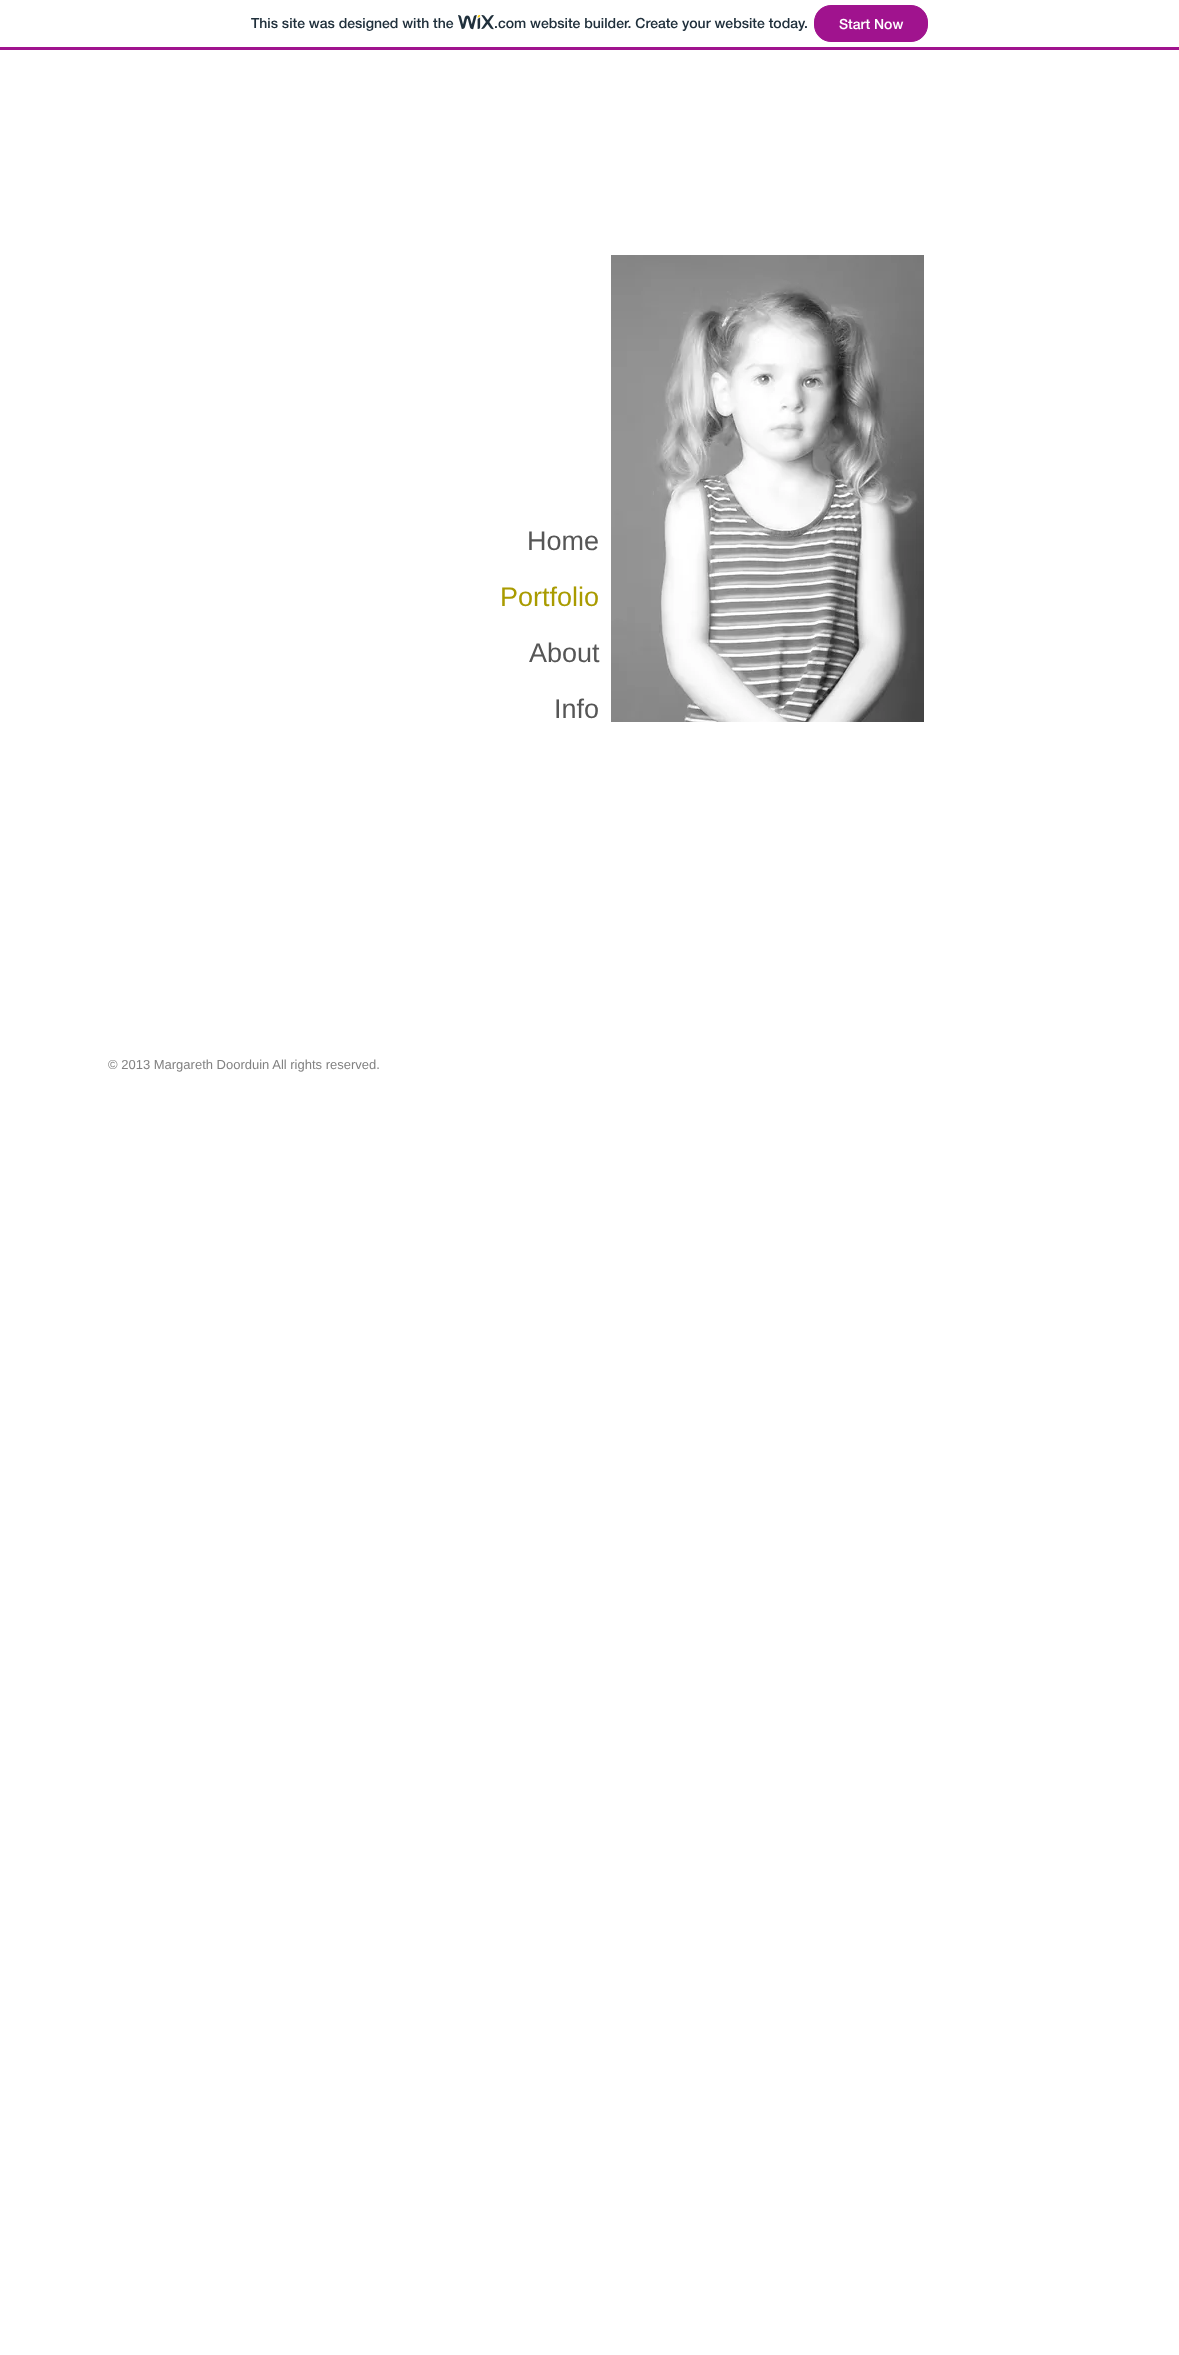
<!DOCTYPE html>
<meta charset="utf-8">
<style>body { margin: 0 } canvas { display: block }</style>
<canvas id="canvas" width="1179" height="2355"></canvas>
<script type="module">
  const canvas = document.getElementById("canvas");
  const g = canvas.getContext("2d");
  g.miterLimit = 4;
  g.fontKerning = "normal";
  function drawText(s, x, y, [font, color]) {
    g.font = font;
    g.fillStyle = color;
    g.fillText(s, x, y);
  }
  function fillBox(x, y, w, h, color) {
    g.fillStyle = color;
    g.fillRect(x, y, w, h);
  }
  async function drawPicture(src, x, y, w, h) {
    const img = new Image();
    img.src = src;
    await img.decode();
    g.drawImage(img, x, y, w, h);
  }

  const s1 = ["500 14px 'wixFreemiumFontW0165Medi'", "#20303C"];
  const s2 = ["500 14px 'wixFreemiumFontW0165Medi'", "#FFFFFF"];
  const s3 = ["27px Liberation Sans", "#565656"];
  const s4 = ["27px Liberation Sans", "#A99B00"];
  const s5 = ["13px Liberation Sans", "#828282"];

  fillBox(0, 0, 1179, 2355, "#FFFFFF");
  fillBox(0, 47, 1179, 3, "#A0138E");
  drawText("This site was designed with the", 251, 28, s1);
  await drawPicture("pic1.png", 458, 15, 36, 15);
  drawText(".com website builder. Create your website today.", 494, 28, s1);
  g.fillStyle = "#A0138E";
  g.beginPath();
  g.roundRect(814.5, 5.5, 113, 36, 16.5);
  g.fill();
  g.strokeStyle = "#A0138E";
  g.stroke();
  drawText("Start Now", 839, 29, s2);
  drawText("Home", 527, 550, s3);
  drawText("Portfolio", 500, 606, s4);
  drawText("About", 529, 662, s3);
  drawText("Info", 554, 718, s3);
  await drawPicture("pic2.png", 611, 255, 313, 467);
  drawText("© 2013 Margareth Doorduin All rights reserved.", 108, 1069, s5);
</script>
